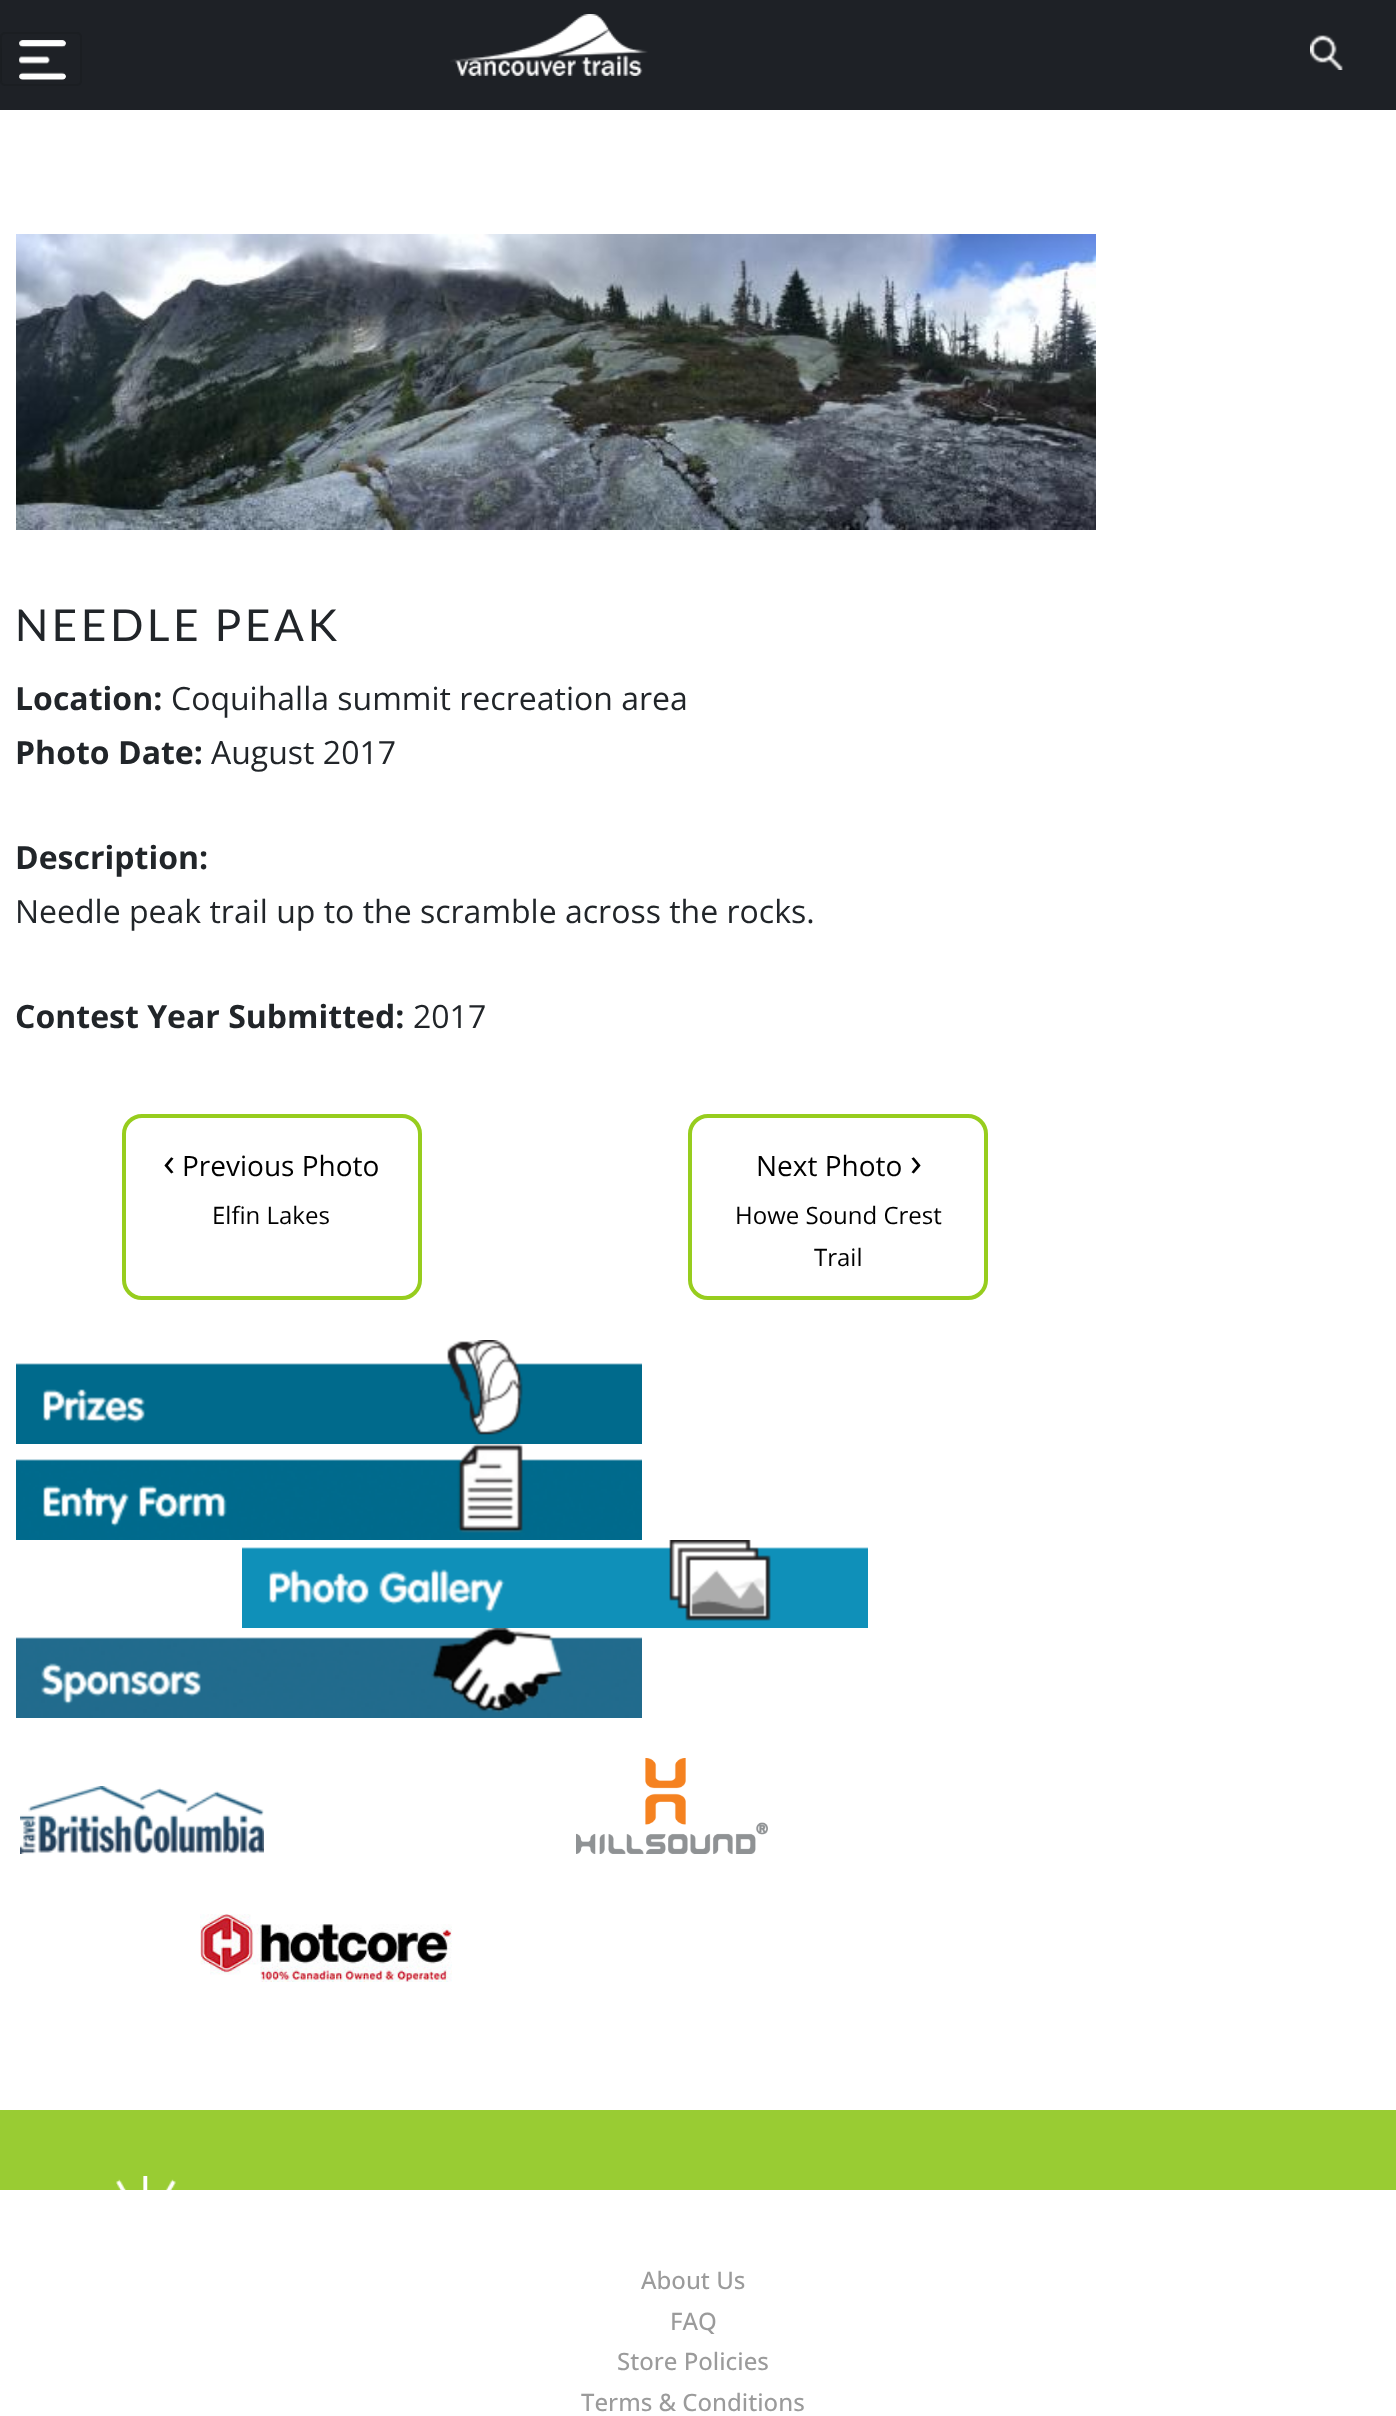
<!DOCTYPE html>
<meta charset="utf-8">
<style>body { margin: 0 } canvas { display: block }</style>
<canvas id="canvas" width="1396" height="2416"></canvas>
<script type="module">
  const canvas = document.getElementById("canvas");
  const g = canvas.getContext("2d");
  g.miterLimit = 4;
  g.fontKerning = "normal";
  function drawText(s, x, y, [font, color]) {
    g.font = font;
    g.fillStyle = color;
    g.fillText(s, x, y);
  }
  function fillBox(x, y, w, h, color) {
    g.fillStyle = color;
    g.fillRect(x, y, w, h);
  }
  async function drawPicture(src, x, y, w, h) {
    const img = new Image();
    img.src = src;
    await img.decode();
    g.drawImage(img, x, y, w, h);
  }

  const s1 = ["44px Lato", "#212529"];
  const s2 = ["bold 32px Open Sans", "#212529"];
  const s3 = ["32px Open Sans", "#212529"];
  const s4 = ["40px Open Sans", "#000000"];
  const s5 = ["28px Open Sans", "#000000"];
  const s6 = ["24px Open Sans", "#000000"];
  const s7 = ["500 24px Open Sans", "#9B9B9B"];

  fillBox(0, 0, 1396, 2416, "#FFFFFF");
  fillBox(0, 0, 1396, 110, "#1E2126");
  g.beginPath();
  g.roundRect(1, 33, 80, 52, 4);
  g.strokeStyle = "#1B1E22";
  g.lineWidth = 2;
  g.stroke();
  await drawPicture("pic1.png", 19, 40, 47, 40);
  await drawPicture("pic2.png", 450, 14, 198, 62);
  await drawPicture("pic3.png", 1310, 35, 33, 35);
  await drawPicture("pic4.png", 16, 234, 1080, 296);
  g.letterSpacing = "3.6px";
  drawText("NEEDLE PEAK", 15, 641, s1);
  g.letterSpacing = "0px";
  drawText("Location:", 15, 710, s2);
  drawText("Coquihalla summit recreation area", 171, 710, s3);
  drawText("Photo Date:", 15, 764, s2);
  drawText("August 2017", 211, 764, s3);
  drawText("Description:", 15, 869, s2);
  drawText("Needle peak trail up to the scramble across the rocks.", 15, 923, s3);
  drawText("Contest Year Submitted:", 15, 1028, s2);
  drawText("2017", 413, 1028, s3);
  g.beginPath();
  g.roundRect(124, 1116, 296, 182, 18);
  g.strokeStyle = "#97CD1E";
  g.lineWidth = 4;
  g.stroke();
  drawText("‹", 163, 1176, s4);
  drawText("Previous Photo", 182, 1176, s5);
  drawText("Elfin Lakes", 212, 1224, s6);
  g.beginPath();
  g.roundRect(690, 1116, 296, 182, 18);
  g.stroke();
  drawText("Next Photo", 756, 1176, s5);
  drawText("›", 910, 1176, s4);
  drawText("Howe Sound Crest", 735, 1224, s6);
  drawText("Trail", 814, 1266, s6);
  await drawPicture("pic5.png", 16, 1340, 626, 104);
  await drawPicture("pic6.png", 16, 1444, 626, 96);
  await drawPicture("pic7.png", 242, 1540, 626, 88);
  await drawPicture("pic8.png", 16, 1628, 626, 90);
  await drawPicture("pic9.png", 20, 1786, 244, 68);
  await drawPicture("pic10.png", 576, 1758, 192, 96);
  await drawPicture("pic11.png", 200, 1914, 252, 68);
  fillBox(0, 2110, 1396, 80, "#99CC33");
  await drawPicture("pic12.png", 116, 2176, 60, 14);
  drawText("About Us", 641, 2289, s7);
  drawText("FAQ", 670, 2330, s7);
  drawText("Store Policies", 617, 2370, s7);
  drawText("Terms & Conditions", 581, 2411, s7);
</script>
